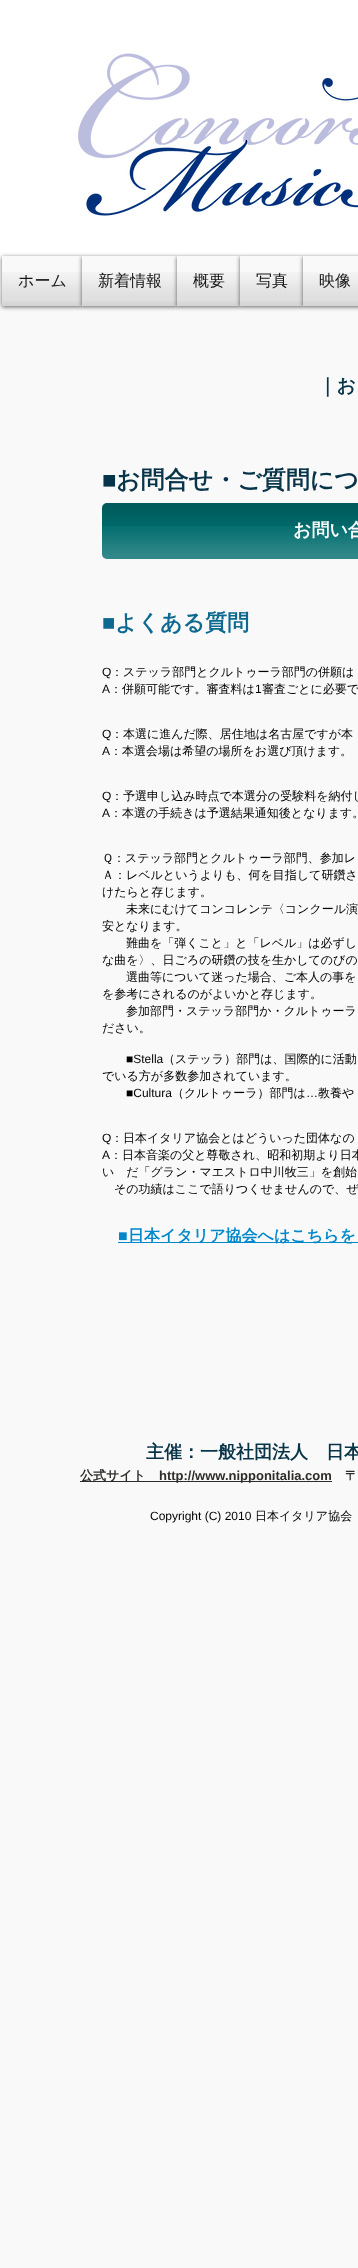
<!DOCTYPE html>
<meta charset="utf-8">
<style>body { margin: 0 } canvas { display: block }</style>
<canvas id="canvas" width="358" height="2268"></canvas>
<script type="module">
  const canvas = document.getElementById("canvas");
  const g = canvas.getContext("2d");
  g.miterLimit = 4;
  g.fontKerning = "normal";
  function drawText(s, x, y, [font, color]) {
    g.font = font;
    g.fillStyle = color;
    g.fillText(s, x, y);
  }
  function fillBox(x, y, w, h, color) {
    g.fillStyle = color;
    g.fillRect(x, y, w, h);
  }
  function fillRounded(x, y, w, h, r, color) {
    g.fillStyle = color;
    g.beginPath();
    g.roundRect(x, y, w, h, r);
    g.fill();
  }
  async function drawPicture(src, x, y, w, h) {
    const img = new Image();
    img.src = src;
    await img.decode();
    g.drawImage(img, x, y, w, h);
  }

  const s1 = ["500 16px WenQuanYi Zen Hei", "#141414"];
  const s2 = ["bold 19px WenQuanYi Zen Hei", "#073448"];
  const s3 = ["bold 24px Liberation Serif", "#073448"];
  const s4 = ["bold 24px WenQuanYi Zen Hei", "#073448"];
  const s5 = ["bold 18px WenQuanYi Zen Hei", "#FFFFFF"];
  const s6 = ["bold 22px Liberation Serif", "#0E6990"];
  const s7 = ["bold 22px WenQuanYi Zen Hei", "#0E6990"];
  const s8 = ["12px Liberation Sans", "#000000"];
  const s9 = ["500 12px WenQuanYi Zen Hei", "#000000"];
  const s10 = ["bold 16px Liberation Sans", "#0088CB"];
  const s11 = ["bold 16px WenQuanYi Zen Hei", "#0088CB"];
  const s12 = ["bold 18px WenQuanYi Zen Hei", "#073448"];
  const s13 = ["bold 13px WenQuanYi Zen Hei", "#2D2C28"];
  const s14 = ["bold 13px Liberation Sans", "#2D2C28"];

  fillBox(0, 0, 358, 2268, "#F9F9F9");
  fillBox(0, 0, 358, 294, "#FFFFFF");
  await drawPicture("pic1.png", 78, 53, 280, 163);
  g.fillStyle = "rgba(0, 0, 0, 0.6)";
  g.filter = "blur(2px)";
  g.beginPath();
  g.rect(2, 257, 80, 50);
  g.fill();
  g.filter = "none";
  fillBox(2, 256, 80, 50, "#F9F9F9");
  await drawPicture("pic2.png", 2, 272, 80, 34);
  drawText("ホーム", 18, 286, s1);
  g.fillStyle = "rgba(0, 0, 0, 0.6)";
  g.filter = "blur(2px)";
  g.beginPath();
  g.rect(82, 257, 95, 50);
  g.fill();
  g.filter = "none";
  fillBox(82, 256, 95, 50, "#F9F9F9");
  await drawPicture("pic3.png", 82, 272, 95, 34);
  drawText("新着情報", 98, 286, s1);
  g.fillStyle = "rgba(0, 0, 0, 0.6)";
  g.filter = "blur(2px)";
  g.beginPath();
  g.rect(177, 257, 63, 50);
  g.fill();
  g.filter = "none";
  fillBox(177, 256, 63, 50, "#F9F9F9");
  await drawPicture("pic4.png", 177, 272, 63, 34);
  drawText("概要", 193, 286, s1);
  g.fillStyle = "rgba(0, 0, 0, 0.6)";
  g.filter = "blur(2px)";
  g.beginPath();
  g.rect(240, 257, 63, 50);
  g.fill();
  g.filter = "none";
  fillBox(240, 256, 63, 50, "#F9F9F9");
  await drawPicture("pic4.png", 240, 272, 63, 34);
  drawText("写真", 256, 286, s1);
  g.fillStyle = "rgba(0, 0, 0, 0.6)";
  g.filter = "blur(2px)";
  g.beginPath();
  g.rect(303, 257, 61, 50);
  g.fill();
  g.filter = "none";
  fillBox(303, 256, 55, 50, "#F9F9F9");
  await drawPicture("pic5.png", 303, 272, 55, 34);
  drawText("映像", 319, 286, s1);
  drawText("｜お", 318, 392, s2);
  drawText("■", 102, 488, s3);
  drawText("お問合せ・ご質問につ", 116, 488, s4);
  fillRounded(102, 503, 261, 56, 5, "#006C6D");
  await drawPicture("pic6.png", 102, 503, 256, 23);
  await drawPicture("pic7.png", 102, 526, 256, 33);
  drawText("お問い合", 293, 536, s5);
  drawText("■", 102, 630, s6);
  drawText("よくある質問", 115, 630, s7);
  drawText("Q", 102, 676, s8);
  drawText("：ステッラ部門とクルトゥーラ部門の併願は", 111, 676, s9);
  drawText("A", 102, 693, s8);
  drawText("：併願可能です。審査料は", 110, 693, s9);
  drawText("1", 255, 693, s8);
  drawText("審査ごとに必要で", 262, 693, s9);
  drawText("Q", 102, 738, s8);
  drawText("：本選に進んだ際、居住地は名古屋ですが本", 111, 738, s9);
  drawText("A", 102, 755, s8);
  drawText("：本選会場は希望の場所をお選び頂けます。", 110, 755, s9);
  drawText("Q", 102, 800, s8);
  drawText("：予選申し込み時点で本選分の受験料を納付し", 111, 800, s9);
  drawText("A", 102, 817, s8);
  drawText("：本選の手続きは予選結果通知後となります。", 110, 817, s9);
  drawText("Ｑ：ステッラ部門とクルトゥーラ部門、参加レ", 102, 862, s9);
  drawText("Ａ：レベルというよりも、何を目指して研鑽さ", 102, 879, s9);
  drawText("けたらと存じます。", 102, 896, s9);
  drawText("未来にむけてコンコレンテ〈コンクール演", 126, 913, s9);
  drawText("安となります。", 102, 930, s9);
  drawText("難曲を「弾くこと」と「レベル」は必ずし", 126, 947, s9);
  drawText("な曲を〉、日ごろの研鑽の技を生かしてのびの", 102, 964, s9);
  drawText("選曲等について迷った場合、ご本人の事を", 126, 981, s9);
  drawText("を参考にされるのがよいかと存じます。", 102, 998, s9);
  drawText("参加部門・ステッラ部門か・クルトゥーラ", 126, 1015, s9);
  drawText("ださい。", 102, 1032, s9);
  drawText("■Stella", 126, 1063, s8);
  drawText("（ステッラ）部門は、国際的に活動", 163, 1063, s9);
  drawText("でいる方が多数参加されています。", 102, 1080, s9);
  drawText("■Cultura", 126, 1097, s8);
  drawText("（クルトゥーラ）部門は", 172, 1097, s9);
  drawText("…", 306, 1097, s8);
  drawText("教養や", 318, 1097, s9);
  drawText("Q", 102, 1142, s8);
  drawText("：日本イタリア協会とはどういった団体なの", 111, 1142, s9);
  drawText("A", 102, 1159, s8);
  drawText("：日本音楽の父と尊敬され、昭和初期より日本", 110, 1159, s9);
  drawText("い　だ「グラン・マエストロ中川牧三」を創始", 102, 1176, s9);
  drawText("その功績はここで語りつくせませんので、ぜ", 114, 1193, s9);
  drawText("■", 118, 1241, s10);
  fillBox(118, 1242, 240, 1, "#0088CB");
  drawText("日本イタリア協会へはこちらを", 128, 1241, s11);
  drawText("主催：一般社団法人", 146, 1458, s12);
  drawText("日本", 326, 1458, s12);
  fillBox(80, 1481, 252, 1, "#2D2C28");
  drawText("公式サイト", 80, 1480, s13);
  drawText("http://www.nipponitalia.com", 159, 1480, s14);
  drawText("〒", 345, 1480, s13);
  drawText("Copyright (C) 2010", 150, 1520, s8);
  drawText("日本イタリア協会", 255, 1520, s9);
</script>
